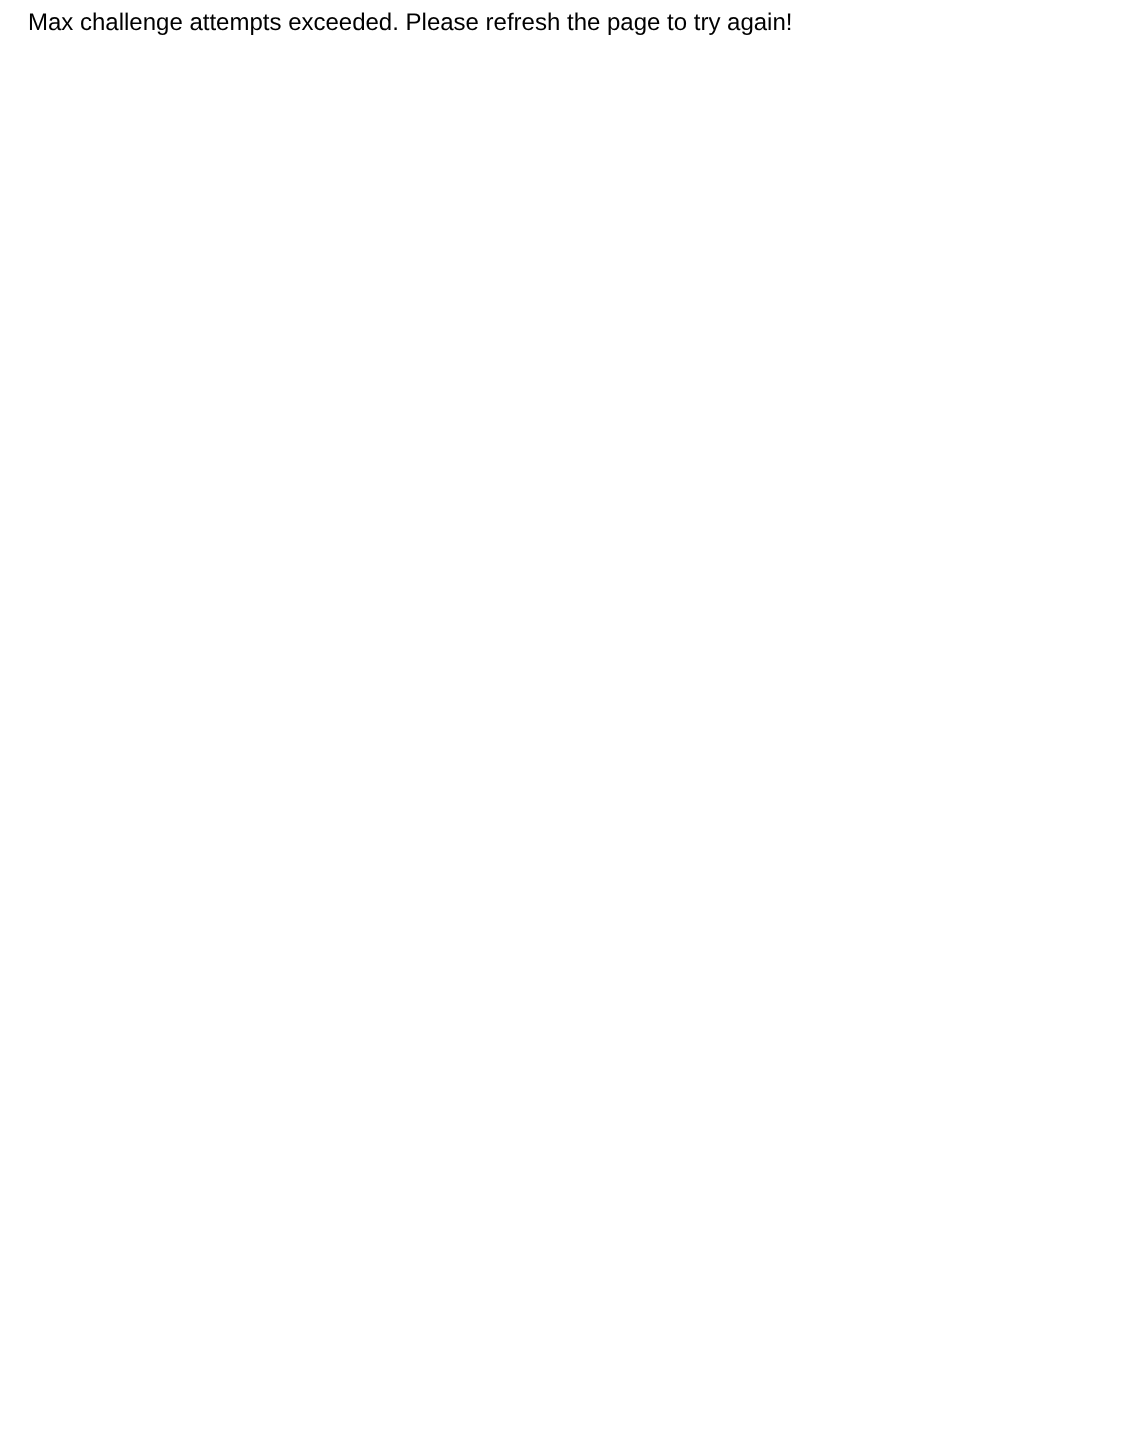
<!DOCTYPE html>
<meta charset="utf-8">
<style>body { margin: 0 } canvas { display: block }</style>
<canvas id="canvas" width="1130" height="1447"></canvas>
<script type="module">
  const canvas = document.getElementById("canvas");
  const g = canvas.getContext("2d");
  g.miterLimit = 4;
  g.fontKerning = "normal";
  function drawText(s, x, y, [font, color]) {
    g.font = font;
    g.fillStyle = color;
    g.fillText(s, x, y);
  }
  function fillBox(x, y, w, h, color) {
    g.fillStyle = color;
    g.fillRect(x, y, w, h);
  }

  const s1 = ["24px Liberation Sans", "#000000"];

  fillBox(0, 0, 1130, 1447, "#FFFFFF");
  drawText("Max challenge attempts exceeded. Please refresh the page to try again!", 28, 30, s1);
</script>
